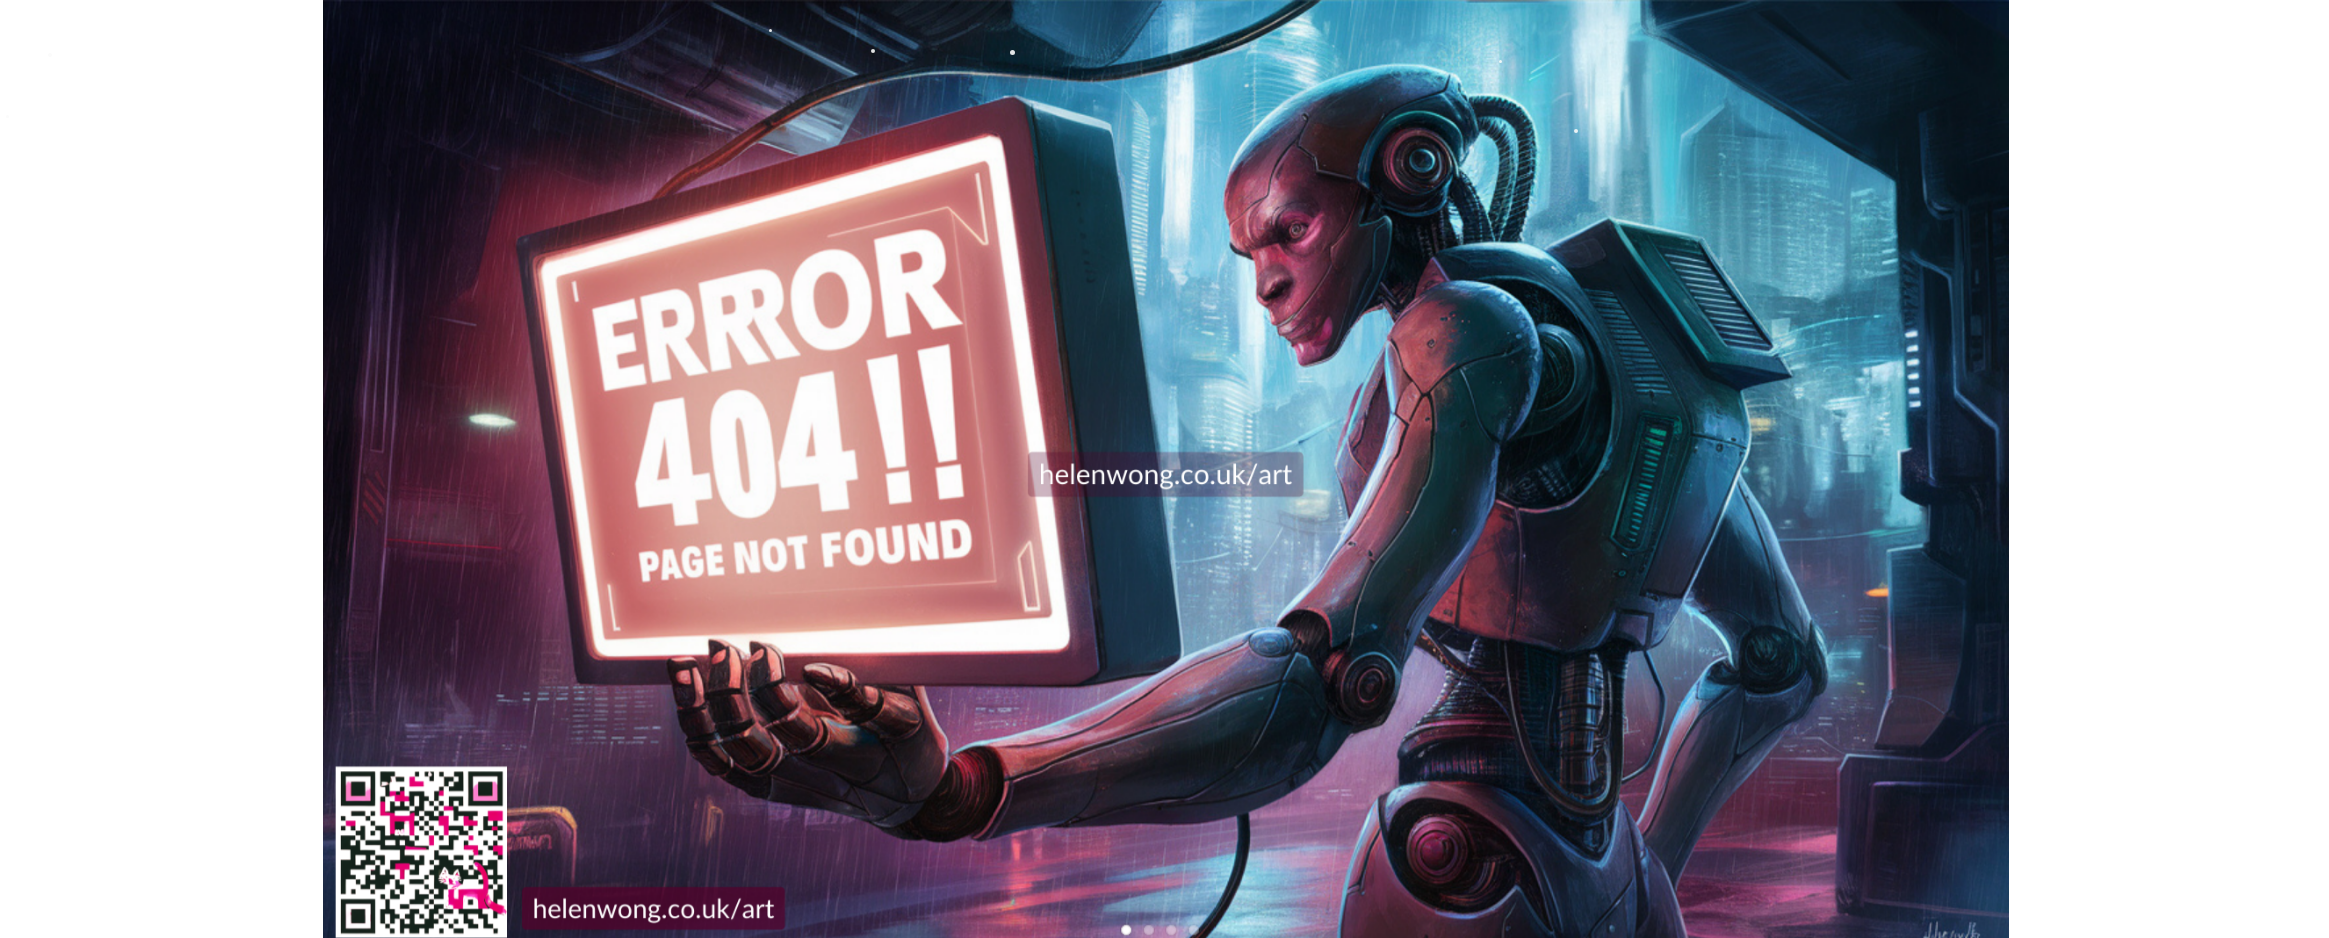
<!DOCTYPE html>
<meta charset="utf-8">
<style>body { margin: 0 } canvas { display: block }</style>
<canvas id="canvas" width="2329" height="938"></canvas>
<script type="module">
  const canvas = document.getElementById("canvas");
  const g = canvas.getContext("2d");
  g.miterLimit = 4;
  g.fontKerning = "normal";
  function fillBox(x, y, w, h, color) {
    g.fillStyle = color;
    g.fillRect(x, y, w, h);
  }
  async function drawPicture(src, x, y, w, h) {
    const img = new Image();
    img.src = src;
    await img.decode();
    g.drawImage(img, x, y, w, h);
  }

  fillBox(0, 0, 2329, 938, "#FFFFFF");
  await drawPicture("pic1.png", 323, 0, 1686, 938);
  await drawPicture("pic2.png", 1120, 923, 13, 13);
  await drawPicture("pic3.png", 1143, 925, 12, 11);
  await drawPicture("pic4.png", 1165, 924, 12, 12);
  await drawPicture("pic5.png", 1188, 924, 12, 12);
  g.fillStyle = "rgba(250, 250, 250, 0.9)";
  g.beginPath();
  g.arc(770.5, 30.5, 1.5, 0, Math.PI * 2);
  g.fill();
  g.fillStyle = "#FBFBFB";
  g.beginPath();
  g.arc(50, 55, 2, 0, Math.PI * 2);
  g.fill();
  g.fillStyle = "rgba(250, 250, 250, 0.9)";
  g.beginPath();
  g.arc(873, 51, 2, 0, Math.PI * 2);
  g.fill();
  g.beginPath();
  g.arc(1012.5, 52.5, 2.5, 0, Math.PI * 2);
  g.fill();
  g.beginPath();
  g.arc(1500.5, 61.5, 1.5, 0, Math.PI * 2);
  g.fill();
  g.fillStyle = "#FBFBFB";
  g.beginPath();
  g.arc(7.5, 116.5, 1.5, 0, Math.PI * 2);
  g.fill();
  g.fillStyle = "rgba(250, 250, 250, 0.9)";
  g.beginPath();
  g.arc(1576, 131, 2, 0, Math.PI * 2);
  g.fill();
</script>
